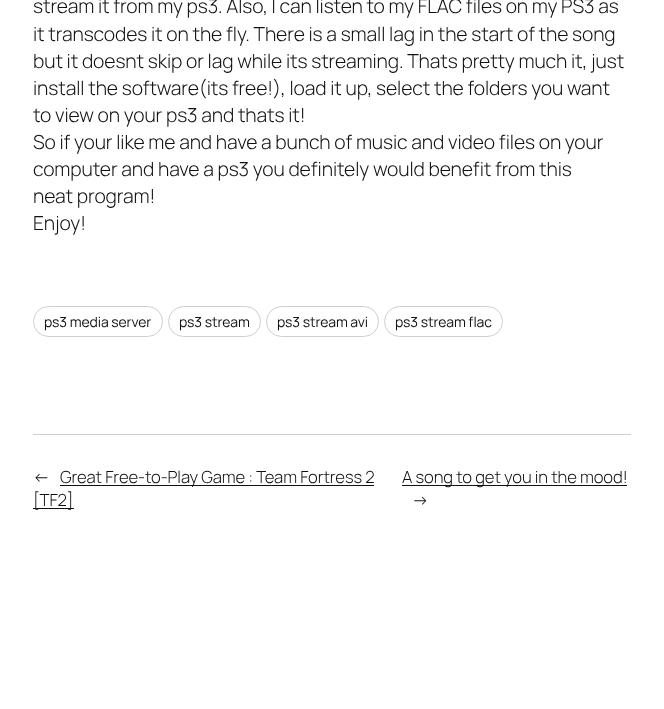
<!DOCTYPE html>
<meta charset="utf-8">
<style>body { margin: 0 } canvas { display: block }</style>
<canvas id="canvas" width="664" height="709"></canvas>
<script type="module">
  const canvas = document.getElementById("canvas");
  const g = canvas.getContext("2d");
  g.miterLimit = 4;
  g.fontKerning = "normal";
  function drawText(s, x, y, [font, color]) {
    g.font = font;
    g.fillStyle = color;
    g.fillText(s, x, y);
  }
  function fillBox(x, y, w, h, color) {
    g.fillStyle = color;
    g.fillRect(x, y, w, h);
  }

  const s1 = ["300 19.35px Manrope", "#111111"];
  const s2 = ["14px Manrope", "#111111"];
  const s3 = ["300 16.7px Manrope", "#111111"];

  fillBox(0, 0, 664, 709, "#FFFFFF");
  g.letterSpacing = "-0.1px";
  drawText("stream it from my ps3. Also, I can listen to my FLAC files on my PS3 as", 33, 13, s1);
  drawText("it transcodes it on the fly. There is a small lag in the start of the song", 33, 41, s1);
  drawText("but it doesnt skip or lag while its streaming. Thats pretty much it, just", 33, 68, s1);
  drawText("install the software(its free!), load it up, select the folders you want", 33, 95, s1);
  drawText("to view on your ps3 and thats it!", 33, 122, s1);
  drawText("So if your like me and have a bunch of music and video files on your", 33, 149, s1);
  drawText("computer and have a ps3 you definitely would benefit from this", 33, 176, s1);
  drawText("neat program!", 33, 203, s1);
  drawText("Enjoy!", 33, 230, s1);
  g.beginPath();
  g.roundRect(33.5, 306.5, 129, 30, 15);
  g.strokeStyle = "#CFCFCF";
  g.stroke();
  drawText("ps3 media server", 44, 327, s2);
  g.beginPath();
  g.roundRect(168.5, 306.5, 92, 30, 15);
  g.stroke();
  drawText("ps3 stream", 179, 327, s2);
  g.beginPath();
  g.roundRect(266.5, 306.5, 112, 30, 15);
  g.stroke();
  drawText("ps3 stream avi", 277, 327, s2);
  g.beginPath();
  g.roundRect(384.5, 306.5, 118, 30, 15);
  g.stroke();
  drawText("ps3 stream flac", 395, 327, s2);
  fillBox(33, 434, 598, 1, "#CFCFCF");
  drawText("←", 33, 483, s3);
  fillBox(60, 485, 314, 1, "#111111");
  drawText("Great Free-to-Play Game : Team Fortress 2", 60, 483, s3);
  fillBox(33, 508, 41, 1, "#111111");
  drawText("[TF2]", 33, 506, s3);
  fillBox(402, 485, 225, 1, "#111111");
  drawText("A song to get you in the mood!", 402, 483, s3);
  drawText("→", 412, 506, s3);
</script>
